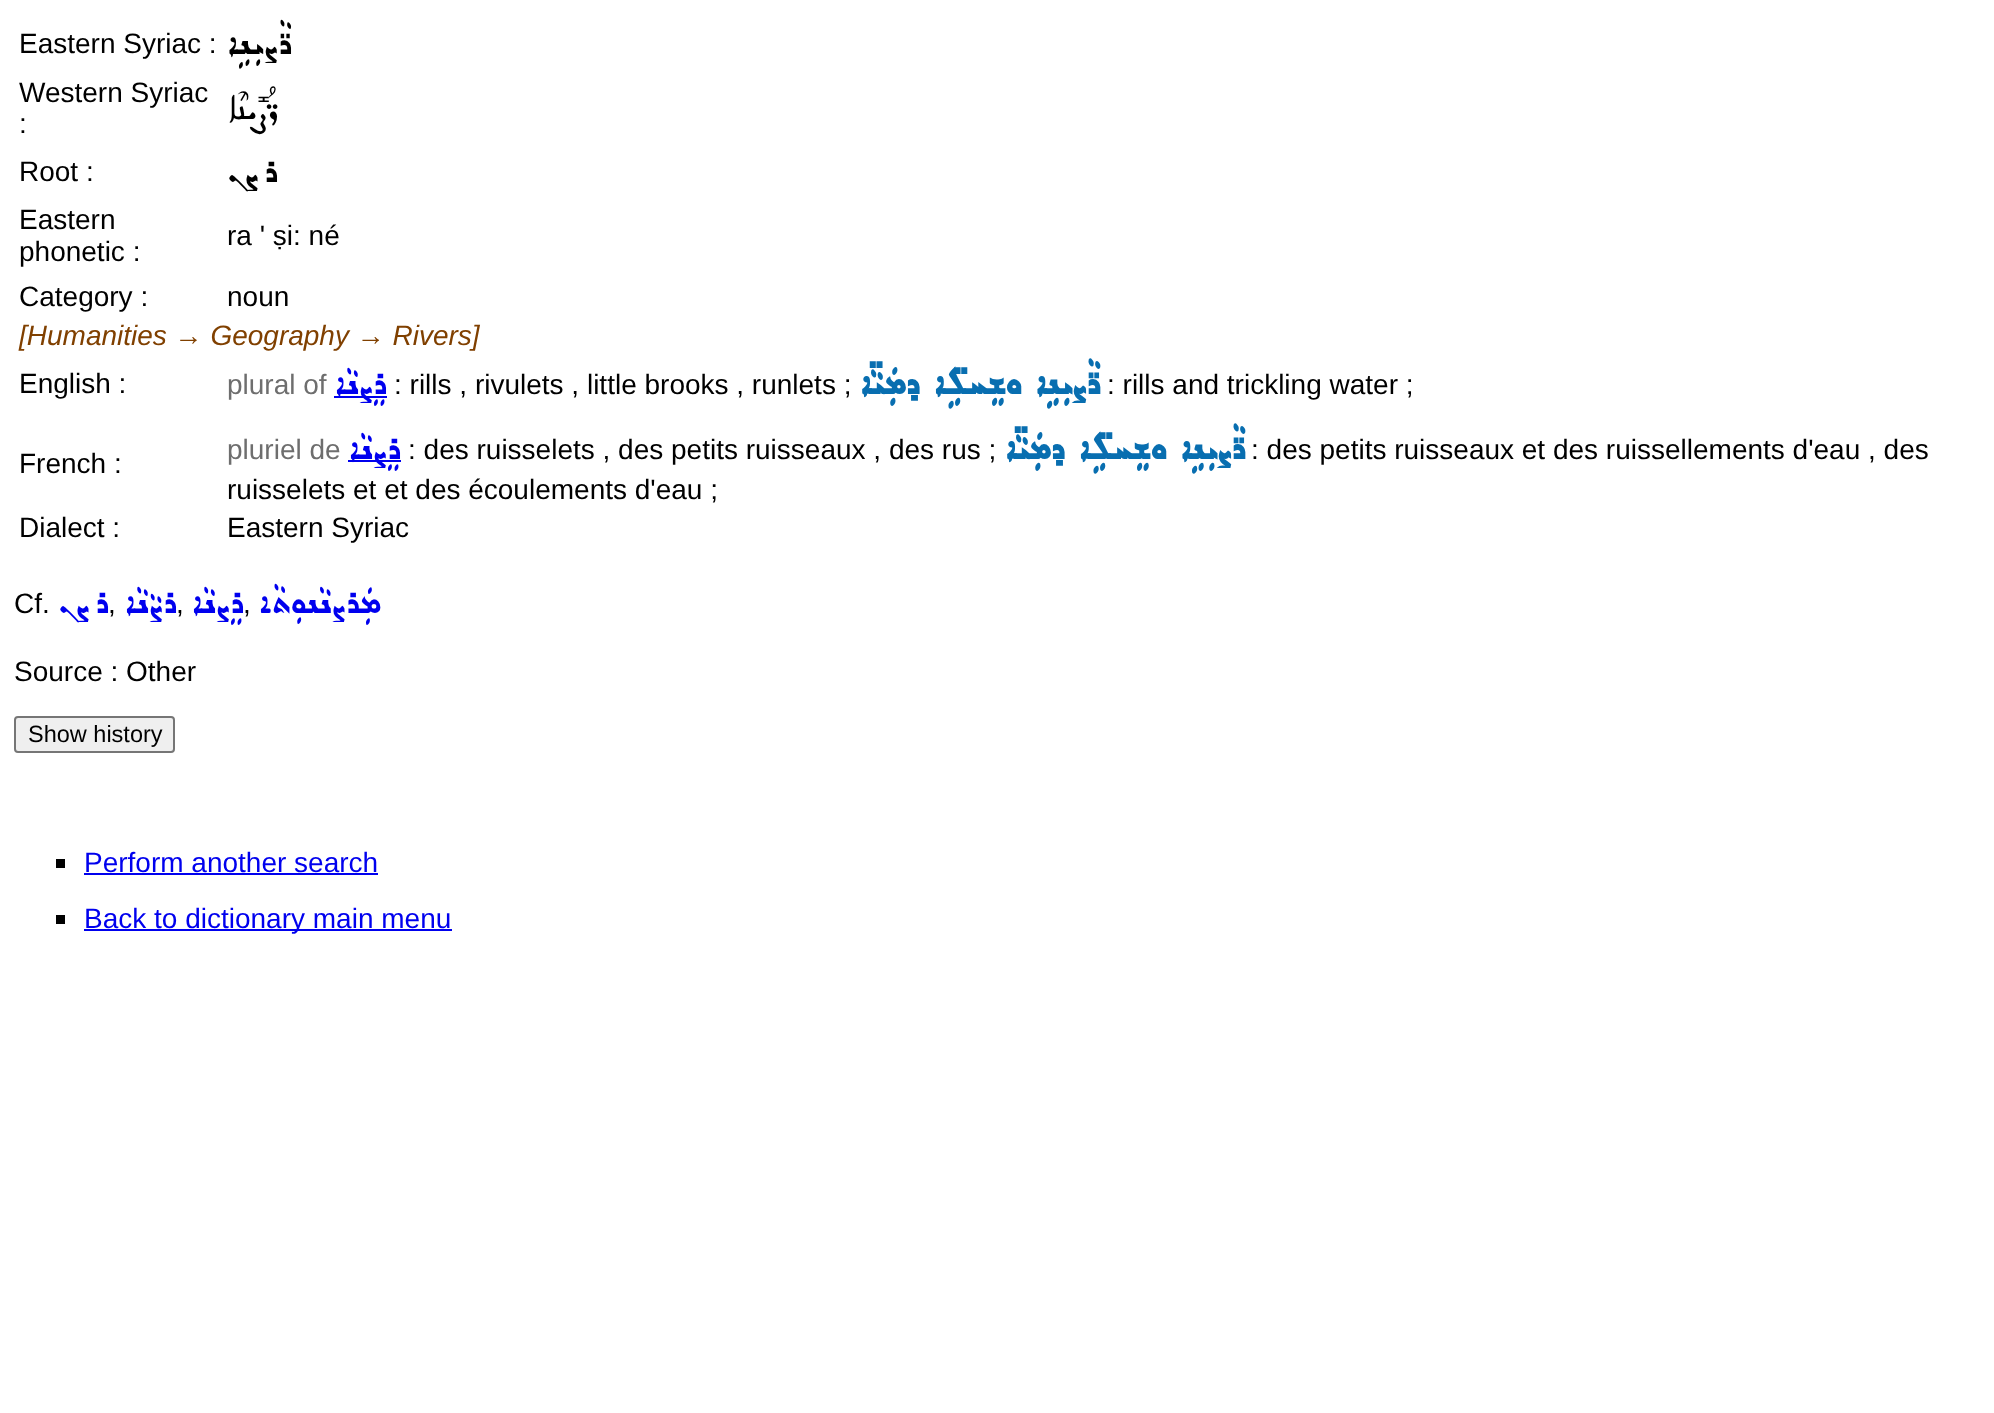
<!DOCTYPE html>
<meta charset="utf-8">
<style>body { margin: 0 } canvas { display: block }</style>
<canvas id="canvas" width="1994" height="1413"></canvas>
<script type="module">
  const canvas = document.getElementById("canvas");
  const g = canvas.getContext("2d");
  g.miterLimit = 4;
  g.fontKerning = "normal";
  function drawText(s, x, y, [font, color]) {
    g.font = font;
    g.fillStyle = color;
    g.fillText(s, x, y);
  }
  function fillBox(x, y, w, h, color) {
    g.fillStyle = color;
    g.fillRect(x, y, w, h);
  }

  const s1 = ["28px Liberation Sans", "#000000"];
  const s2 = ["44.75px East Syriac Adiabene", "#000000"];
  const s3 = ["48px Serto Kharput", "#000000"];
  const s4 = ["italic 28px Liberation Sans", "#804000"];
  const s5 = ["28px Liberation Sans", "#6E6E6E"];
  const s6 = ["44.75px East Syriac Adiabene", "#0000EE"];
  const s7 = ["bold 44.75px East Syriac Adiabene", "#086EB0"];
  const s8 = ["23.5px Liberation Sans", "#000000"];
  const s9 = ["28px Liberation Sans", "#0000EE"];

  fillBox(0, 0, 1994, 1413, "#FFFFFF");
  drawText("Eastern Syriac :", 19, 53, s1);
  g.direction = "rtl";
  drawText("ܪ̈ܵܨܝܼܢܹܐ", 291, 54, s2);
  g.direction = "ltr";
  drawText("Western Syriac", 19, 102, s1);
  drawText(":", 19, 133, s1);
  g.direction = "rtl";
  drawText("ܪ̈ܳܨܺܝܢܶܐ", 277, 119, s3);
  g.direction = "ltr";
  drawText("Root :", 19, 181, s1);
  g.direction = "rtl";
  drawText("ܪܨܢ", 277, 182, s2);
  g.direction = "ltr";
  drawText("Eastern", 19, 229, s1);
  drawText("phonetic :", 19, 261, s1);
  drawText("ra ' ṣi: né", 227, 245, s1);
  drawText("Category :", 19, 306, s1);
  drawText("noun", 227, 306, s1);
  drawText("[Humanities → Geography → Rivers]", 19, 345, s4);
  drawText("English :", 19, 393, s1);
  drawText("plural of", 227, 394, s5);
  fillBox(334, 396, 53, 2, "#0000EE");
  g.direction = "rtl";
  drawText("ܪܸܨܢܵܐ", 386, 394, s6);
  g.direction = "ltr";
  drawText(": rills , rivulets , little brooks , runlets ;", 394, 394, s1);
  g.direction = "rtl";
  drawText("ܪ̈ܵܨܝܼܢܹܐ ܘܫܸܚܠܹ̈ܐ ܕܡܲܝܵ̈ܐ", 1099, 394, s7);
  g.direction = "ltr";
  drawText(": rills and trickling water ;", 1107, 394, s1);
  drawText("French :", 19, 473, s1);
  drawText("pluriel de", 227, 459, s5);
  fillBox(348, 460, 53, 2, "#0000EE");
  g.direction = "rtl";
  drawText("ܪܸܨܢܵܐ", 400, 459, s6);
  g.direction = "ltr";
  drawText(": des ruisselets , des petits ruisseaux , des rus ;", 408, 459, s1);
  g.direction = "rtl";
  drawText("ܪ̈ܵܨܝܼܢܹܐ ܘܫܸܚܠܹ̈ܐ ܕܡܲܝܵ̈ܐ", 1244, 459, s7);
  g.direction = "ltr";
  drawText(": des petits ruisseaux et des ruissellements d'eau , des", 1251, 459, s1);
  drawText("ruisselets et et des écoulements d'eau ;", 227, 499, s1);
  drawText("Dialect :", 19, 537, s1);
  drawText("Eastern Syriac", 227, 537, s1);
  drawText("Cf.", 14, 613, s1);
  g.direction = "rtl";
  drawText("ܪܨܢ", 108, 613, s6);
  g.direction = "ltr";
  drawText(",", 108, 613, s1);
  g.direction = "rtl";
  drawText("ܪܨܵܢܵܐ", 176, 613, s6);
  g.direction = "ltr";
  drawText(",", 176, 613, s1);
  g.direction = "rtl";
  drawText("ܪܸܨܢܵܐ", 243, 613, s6);
  g.direction = "ltr";
  drawText(",", 243, 613, s1);
  g.direction = "rtl";
  drawText("ܡܲܪܨܢܵܢܘܼܬܵܐ", 381, 613, s6);
  g.direction = "ltr";
  drawText("Source : Other", 14, 681, s1);
  g.fillStyle = "#EFEFEF";
  g.beginPath();
  g.roundRect(15, 717, 159, 35, 3);
  g.fill();
  g.strokeStyle = "#767676";
  g.lineWidth = 2;
  g.stroke();
  drawText("Show history", 28, 742, s8);
  fillBox(56, 859, 9, 9, "#000000");
  drawText("Perform another search", 84, 872, s9);
  fillBox(84, 873, 294, 2, "#0000EE");
  fillBox(56, 915, 9, 9, "#000000");
  fillBox(84, 929, 368, 2, "#0000EE");
  drawText("Back to dictionary main menu", 84, 928, s9);
</script>
